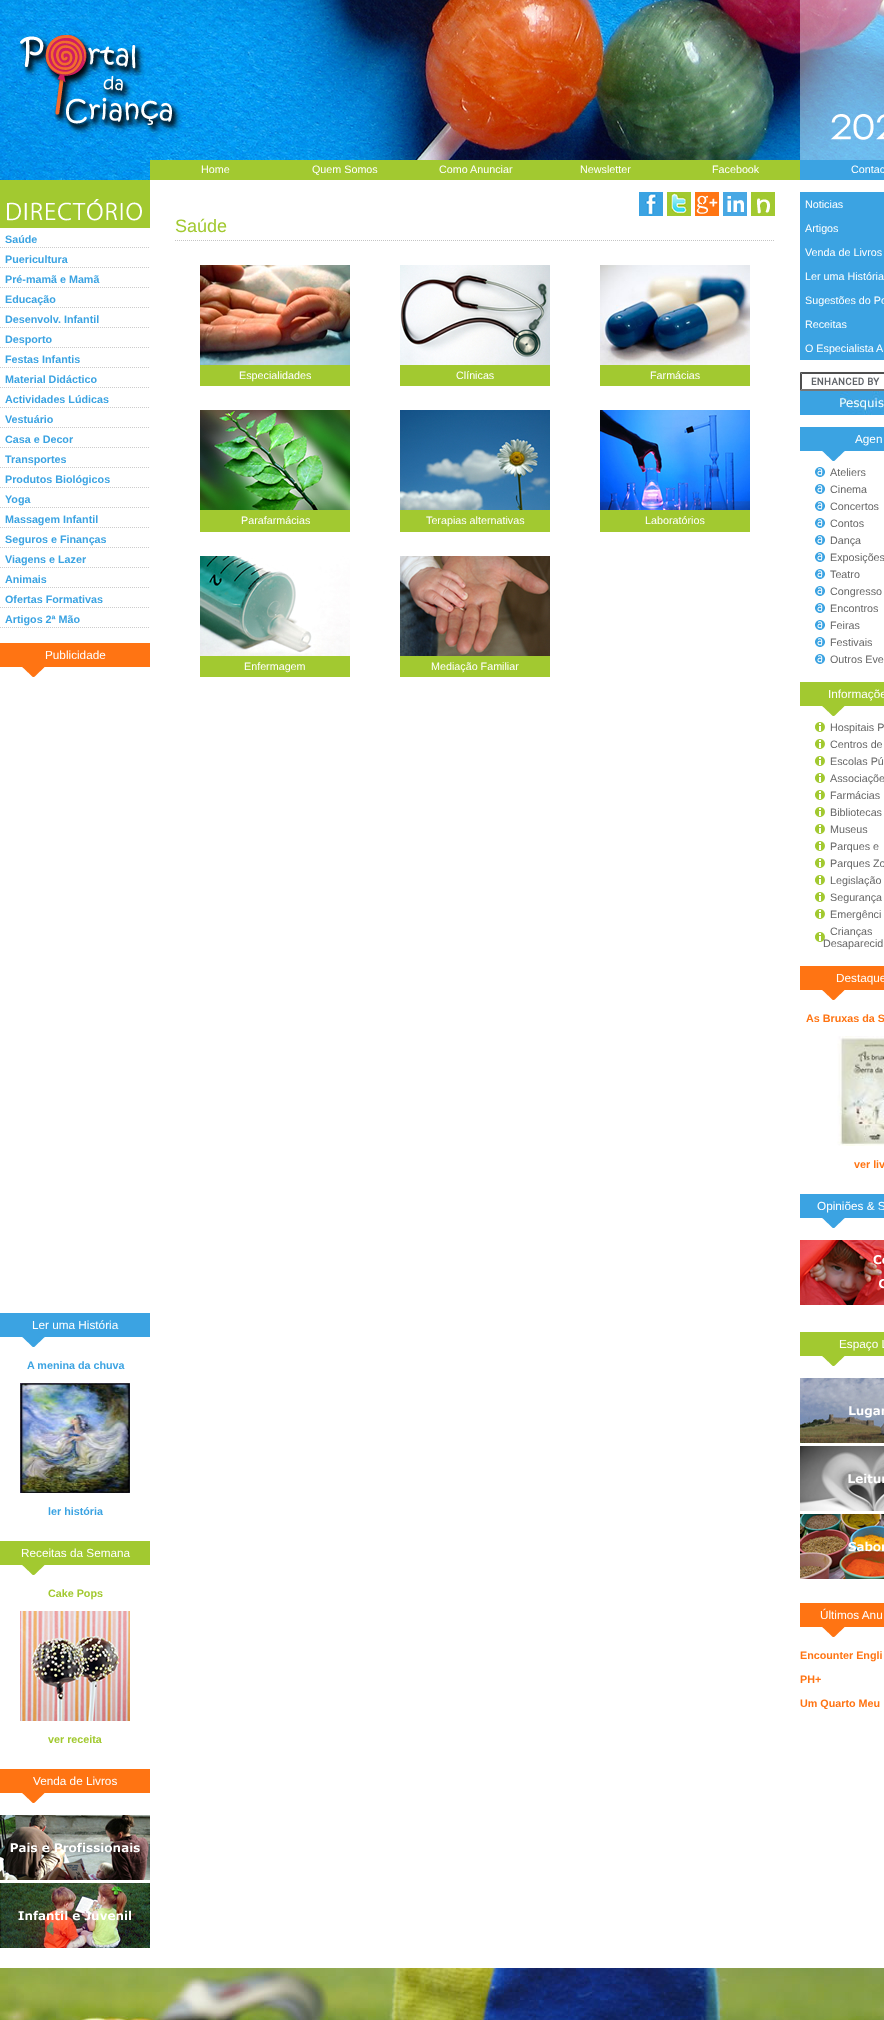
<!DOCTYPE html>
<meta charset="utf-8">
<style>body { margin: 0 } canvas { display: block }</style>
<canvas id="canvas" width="884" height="2020"></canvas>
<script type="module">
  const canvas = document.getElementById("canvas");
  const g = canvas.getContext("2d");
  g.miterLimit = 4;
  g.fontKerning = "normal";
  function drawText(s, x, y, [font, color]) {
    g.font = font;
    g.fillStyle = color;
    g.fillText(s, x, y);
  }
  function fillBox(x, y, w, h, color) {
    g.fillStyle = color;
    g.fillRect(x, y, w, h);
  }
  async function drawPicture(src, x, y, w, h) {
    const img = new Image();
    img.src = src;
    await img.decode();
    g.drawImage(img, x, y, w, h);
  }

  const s1 = ["10.75px Liberation Sans", "#FFFFFF"];
  const s2 = ["bold 10.75px Liberation Sans", "#3BA3E2"];
  const s3 = ["11.75px Liberation Sans", "#FFFFFF"];
  const s4 = ["bold 10.75px Liberation Sans", "#A2C930"];
  const s5 = ["18px Liberation Sans", "#A2C930"];
  const s6 = ["10.75px Liberation Sans", "#666666"];
  const s7 = ["bold 10.75px Liberation Sans", "#FF7413"];

  fillBox(0, 0, 884, 2020, "#FFFFFF");
  await drawPicture("pic1.png", 0, 0, 884, 160);
  await drawPicture("pic2.png", 0, 160, 150, 20);
  fillBox(150, 160, 650, 20, "#A2C930");
  drawText("Home", 201, 173, s1);
  drawText("Quem Somos", 312, 173, s1);
  drawText("Como Anunciar", 439, 173, s1);
  drawText("Newsletter", 580, 173, s1);
  drawText("Facebook", 712, 173, s1);
  fillBox(800, 160, 84, 20, "#3BA3E2");
  drawText("Contac", 851, 173, s1);
  await drawPicture("pic3.png", 0, 180, 150, 48);
  g.beginPath();
  g.moveTo(0, 247.5);
  g.lineTo(150, 247.5);
  g.strokeStyle = "#CCCCCC";
  g.setLineDash([1, 1]);
  g.stroke();
  drawText("Saúde", 5, 243, s2);
  g.beginPath();
  g.moveTo(0, 267.5);
  g.lineTo(150, 267.5);
  g.stroke();
  drawText("Puericultura", 5, 263, s2);
  g.beginPath();
  g.moveTo(0, 287.5);
  g.lineTo(150, 287.5);
  g.stroke();
  drawText("Pré-mamã e Mamã", 5, 283, s2);
  g.beginPath();
  g.moveTo(0, 307.5);
  g.lineTo(150, 307.5);
  g.stroke();
  drawText("Educação", 5, 303, s2);
  g.beginPath();
  g.moveTo(0, 327.5);
  g.lineTo(150, 327.5);
  g.stroke();
  drawText("Desenvolv. Infantil", 5, 323, s2);
  g.beginPath();
  g.moveTo(0, 347.5);
  g.lineTo(150, 347.5);
  g.stroke();
  drawText("Desporto", 5, 343, s2);
  g.beginPath();
  g.moveTo(0, 367.5);
  g.lineTo(150, 367.5);
  g.stroke();
  drawText("Festas Infantis", 5, 363, s2);
  g.beginPath();
  g.moveTo(0, 387.5);
  g.lineTo(150, 387.5);
  g.stroke();
  drawText("Material Didáctico", 5, 383, s2);
  g.beginPath();
  g.moveTo(0, 407.5);
  g.lineTo(150, 407.5);
  g.stroke();
  drawText("Actividades Lúdicas", 5, 403, s2);
  g.beginPath();
  g.moveTo(0, 427.5);
  g.lineTo(150, 427.5);
  g.stroke();
  drawText("Vestuário", 5, 423, s2);
  g.beginPath();
  g.moveTo(0, 447.5);
  g.lineTo(150, 447.5);
  g.stroke();
  drawText("Casa e Decor", 5, 443, s2);
  g.beginPath();
  g.moveTo(0, 467.5);
  g.lineTo(150, 467.5);
  g.stroke();
  drawText("Transportes", 5, 463, s2);
  g.beginPath();
  g.moveTo(0, 487.5);
  g.lineTo(150, 487.5);
  g.stroke();
  drawText("Produtos Biológicos", 5, 483, s2);
  g.beginPath();
  g.moveTo(0, 507.5);
  g.lineTo(150, 507.5);
  g.stroke();
  drawText("Yoga", 5, 503, s2);
  g.beginPath();
  g.moveTo(0, 527.5);
  g.lineTo(150, 527.5);
  g.stroke();
  drawText("Massagem Infantil", 5, 523, s2);
  g.beginPath();
  g.moveTo(0, 547.5);
  g.lineTo(150, 547.5);
  g.stroke();
  drawText("Seguros e Finanças", 5, 543, s2);
  g.beginPath();
  g.moveTo(0, 567.5);
  g.lineTo(150, 567.5);
  g.stroke();
  drawText("Viagens e Lazer", 5, 563, s2);
  g.beginPath();
  g.moveTo(0, 587.5);
  g.lineTo(150, 587.5);
  g.stroke();
  drawText("Animais", 5, 583, s2);
  g.beginPath();
  g.moveTo(0, 607.5);
  g.lineTo(150, 607.5);
  g.stroke();
  drawText("Ofertas Formativas", 5, 603, s2);
  g.beginPath();
  g.moveTo(0, 627.5);
  g.lineTo(150, 627.5);
  g.stroke();
  drawText("Artigos 2ª Mão", 5, 623, s2);
  fillBox(0, 643, 150, 24, "#FF7413");
  drawText("Publicidade", 45, 659, s3);
  await drawPicture("pic4.png", 22, 667, 23, 10);
  fillBox(0, 1313, 150, 24, "#3BA3E2");
  drawText("Ler uma História", 32, 1329, s3);
  await drawPicture("pic5.png", 22, 1337, 23, 10);
  drawText("A menina da chuva", 27, 1369, s2);
  await drawPicture("pic6.png", 20, 1383, 110, 110);
  drawText("ler história", 48, 1515, s2);
  fillBox(0, 1541, 150, 24, "#A2C930");
  drawText("Receitas da Semana", 21, 1557, s3);
  await drawPicture("pic7.png", 22, 1565, 23, 10);
  drawText("Cake Pops", 48, 1597, s4);
  await drawPicture("pic8.png", 20, 1611, 110, 110);
  drawText("ver receita", 48, 1743, s4);
  fillBox(0, 1769, 150, 24, "#FF7413");
  drawText("Venda de Livros", 33, 1785, s3);
  await drawPicture("pic4.png", 22, 1793, 23, 10);
  await drawPicture("pic9.png", 0, 1815, 150, 65);
  await drawPicture("pic10.png", 0, 1883, 150, 65);
  await drawPicture("pic11.png", 639, 192, 24, 24);
  await drawPicture("pic12.png", 667, 192, 24, 24);
  await drawPicture("pic13.png", 695, 192, 24, 24);
  await drawPicture("pic14.png", 723, 192, 24, 24);
  await drawPicture("pic15.png", 751, 192, 24, 24);
  g.beginPath();
  g.moveTo(175, 240.5);
  g.lineTo(775, 240.5);
  g.strokeStyle = "#C5C5C5";
  g.stroke();
  drawText("Saúde", 175, 232, s5);
  await drawPicture("pic16.png", 200, 265, 150, 100);
  fillBox(200, 365, 150, 21, "#A2C930");
  drawText("Especialidades", 239, 379, s1);
  await drawPicture("pic17.png", 400, 265, 150, 100);
  fillBox(400, 365, 150, 21, "#A2C930");
  drawText("Clínicas", 456, 379, s1);
  await drawPicture("pic18.png", 600, 265, 150, 100);
  fillBox(600, 365, 150, 21, "#A2C930");
  drawText("Farmácias", 650, 379, s1);
  await drawPicture("pic19.png", 200, 410, 150, 100);
  fillBox(200, 510, 150, 22, "#A2C930");
  drawText("Parafarmácias", 241, 524, s1);
  await drawPicture("pic20.png", 400, 410, 150, 100);
  fillBox(400, 510, 150, 22, "#A2C930");
  drawText("Terapias alternativas", 426, 524, s1);
  await drawPicture("pic21.png", 600, 410, 150, 100);
  fillBox(600, 510, 150, 22, "#A2C930");
  drawText("Laboratórios", 645, 524, s1);
  await drawPicture("pic22.png", 200, 556, 150, 100);
  fillBox(200, 656, 150, 21, "#A2C930");
  drawText("Enfermagem", 244, 670, s1);
  await drawPicture("pic23.png", 400, 556, 150, 100);
  fillBox(400, 656, 150, 21, "#A2C930");
  drawText("Mediação Familiar", 431, 670, s1);
  fillBox(800, 192, 84, 168, "#3BA3E2");
  drawText("Noticias", 805, 208, s1);
  drawText("Artigos", 805, 232, s1);
  drawText("Venda de Livros", 805, 256, s1);
  drawText("Ler uma História", 805, 280, s1);
  drawText("Sugestões do Po", 805, 304, s1);
  drawText("Receitas", 805, 328, s1);
  drawText("O Especialista A", 805, 352, s1);
  await drawPicture("pic24.png", 811, 377, 69, 8);
  g.fillStyle = "#4F4F4F";
  g.beginPath();
  g.moveTo(800, 372);
  g.lineTo(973, 372);
  g.lineTo(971, 374);
  g.lineTo(802, 374);
  g.closePath();
  g.fill();
  g.fillStyle = "#767676";
  g.beginPath();
  g.moveTo(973, 391);
  g.lineTo(800, 391);
  g.lineTo(802, 389);
  g.lineTo(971, 389);
  g.closePath();
  g.fill();
  g.fillStyle = "#4F4F4F";
  g.beginPath();
  g.moveTo(800, 391);
  g.lineTo(800, 372);
  g.lineTo(802, 374);
  g.lineTo(802, 389);
  g.closePath();
  g.fill();
  await drawPicture("pic25.png", 800, 391, 84, 24);
  fillBox(800, 427, 84, 24, "#3BA3E2");
  drawText("Agen", 855, 443, s3);
  await drawPicture("pic5.png", 822, 451, 23, 10);
  await drawPicture("pic26.png", 815, 467, 10, 10);
  drawText("Ateliers", 830, 476, s6);
  await drawPicture("pic26.png", 815, 484, 10, 10);
  drawText("Cinema", 830, 493, s6);
  await drawPicture("pic26.png", 815, 501, 10, 10);
  drawText("Concertos", 830, 510, s6);
  await drawPicture("pic26.png", 815, 518, 10, 10);
  drawText("Contos", 830, 527, s6);
  await drawPicture("pic26.png", 815, 535, 10, 10);
  drawText("Dança", 830, 544, s6);
  await drawPicture("pic26.png", 815, 552, 10, 10);
  drawText("Exposições", 830, 561, s6);
  await drawPicture("pic26.png", 815, 569, 10, 10);
  drawText("Teatro", 830, 578, s6);
  await drawPicture("pic26.png", 815, 586, 10, 10);
  drawText("Congresso", 830, 595, s6);
  await drawPicture("pic26.png", 815, 603, 10, 10);
  drawText("Encontros", 830, 612, s6);
  await drawPicture("pic26.png", 815, 620, 10, 10);
  drawText("Feiras", 830, 629, s6);
  await drawPicture("pic26.png", 815, 637, 10, 10);
  drawText("Festivais", 830, 646, s6);
  await drawPicture("pic26.png", 815, 654, 10, 10);
  drawText("Outros Eve", 830, 663, s6);
  fillBox(800, 682, 84, 24, "#A2C930");
  drawText("Informaçõe", 828, 698, s3);
  await drawPicture("pic7.png", 822, 706, 23, 10);
  await drawPicture("pic27.png", 815, 722, 10, 10);
  drawText("Hospitais P", 830, 731, s6);
  await drawPicture("pic27.png", 815, 739, 10, 10);
  drawText("Centros de", 830, 748, s6);
  await drawPicture("pic27.png", 815, 756, 10, 10);
  drawText("Escolas Pú", 830, 765, s6);
  await drawPicture("pic27.png", 815, 773, 10, 10);
  drawText("Associaçõe", 830, 782, s6);
  await drawPicture("pic27.png", 815, 790, 10, 10);
  drawText("Farmácias", 830, 799, s6);
  await drawPicture("pic27.png", 815, 807, 10, 10);
  drawText("Bibliotecas", 830, 816, s6);
  await drawPicture("pic27.png", 815, 824, 10, 10);
  drawText("Museus", 830, 833, s6);
  await drawPicture("pic27.png", 815, 841, 10, 10);
  drawText("Parques e", 830, 850, s6);
  await drawPicture("pic27.png", 815, 858, 10, 10);
  drawText("Parques Zo", 830, 867, s6);
  await drawPicture("pic27.png", 815, 875, 10, 10);
  drawText("Legislação", 830, 884, s6);
  await drawPicture("pic27.png", 815, 892, 10, 10);
  drawText("Segurança", 830, 901, s6);
  await drawPicture("pic27.png", 815, 909, 10, 10);
  drawText("Emergênci", 830, 918, s6);
  await drawPicture("pic27.png", 815, 932, 10, 10);
  drawText("Crianças", 830, 935, s6);
  drawText("Desaparecid", 823, 947, s6);
  fillBox(800, 966, 84, 24, "#FF7413");
  drawText("Destaque", 836, 982, s3);
  await drawPicture("pic4.png", 822, 990, 23, 10);
  drawText("As Bruxas da S", 806, 1022, s7);
  await drawPicture("pic28.png", 837, 1036, 47, 110);
  drawText("ver liv", 854, 1168, s7);
  fillBox(800, 1194, 84, 24, "#3BA3E2");
  drawText("Opiniões & S", 817, 1210, s3);
  await drawPicture("pic5.png", 822, 1218, 23, 10);
  await drawPicture("pic29.png", 800, 1240, 84, 65);
  fillBox(800, 1332, 84, 24, "#A2C930");
  drawText("Espaço L", 839, 1348, s3);
  await drawPicture("pic7.png", 822, 1356, 23, 10);
  await drawPicture("pic30.png", 800, 1378, 84, 65);
  await drawPicture("pic31.png", 800, 1446, 84, 65);
  await drawPicture("pic32.png", 800, 1514, 84, 65);
  fillBox(800, 1603, 84, 24, "#FF7413");
  drawText("Últimos Anu", 820, 1619, s3);
  await drawPicture("pic4.png", 822, 1627, 23, 10);
  drawText("Encounter Engli", 800, 1659, s7);
  drawText("PH+", 800, 1683, s7);
  drawText("Um Quarto Meu", 800, 1707, s7);
  await drawPicture("pic33.png", 0, 1968, 884, 52);
</script>
